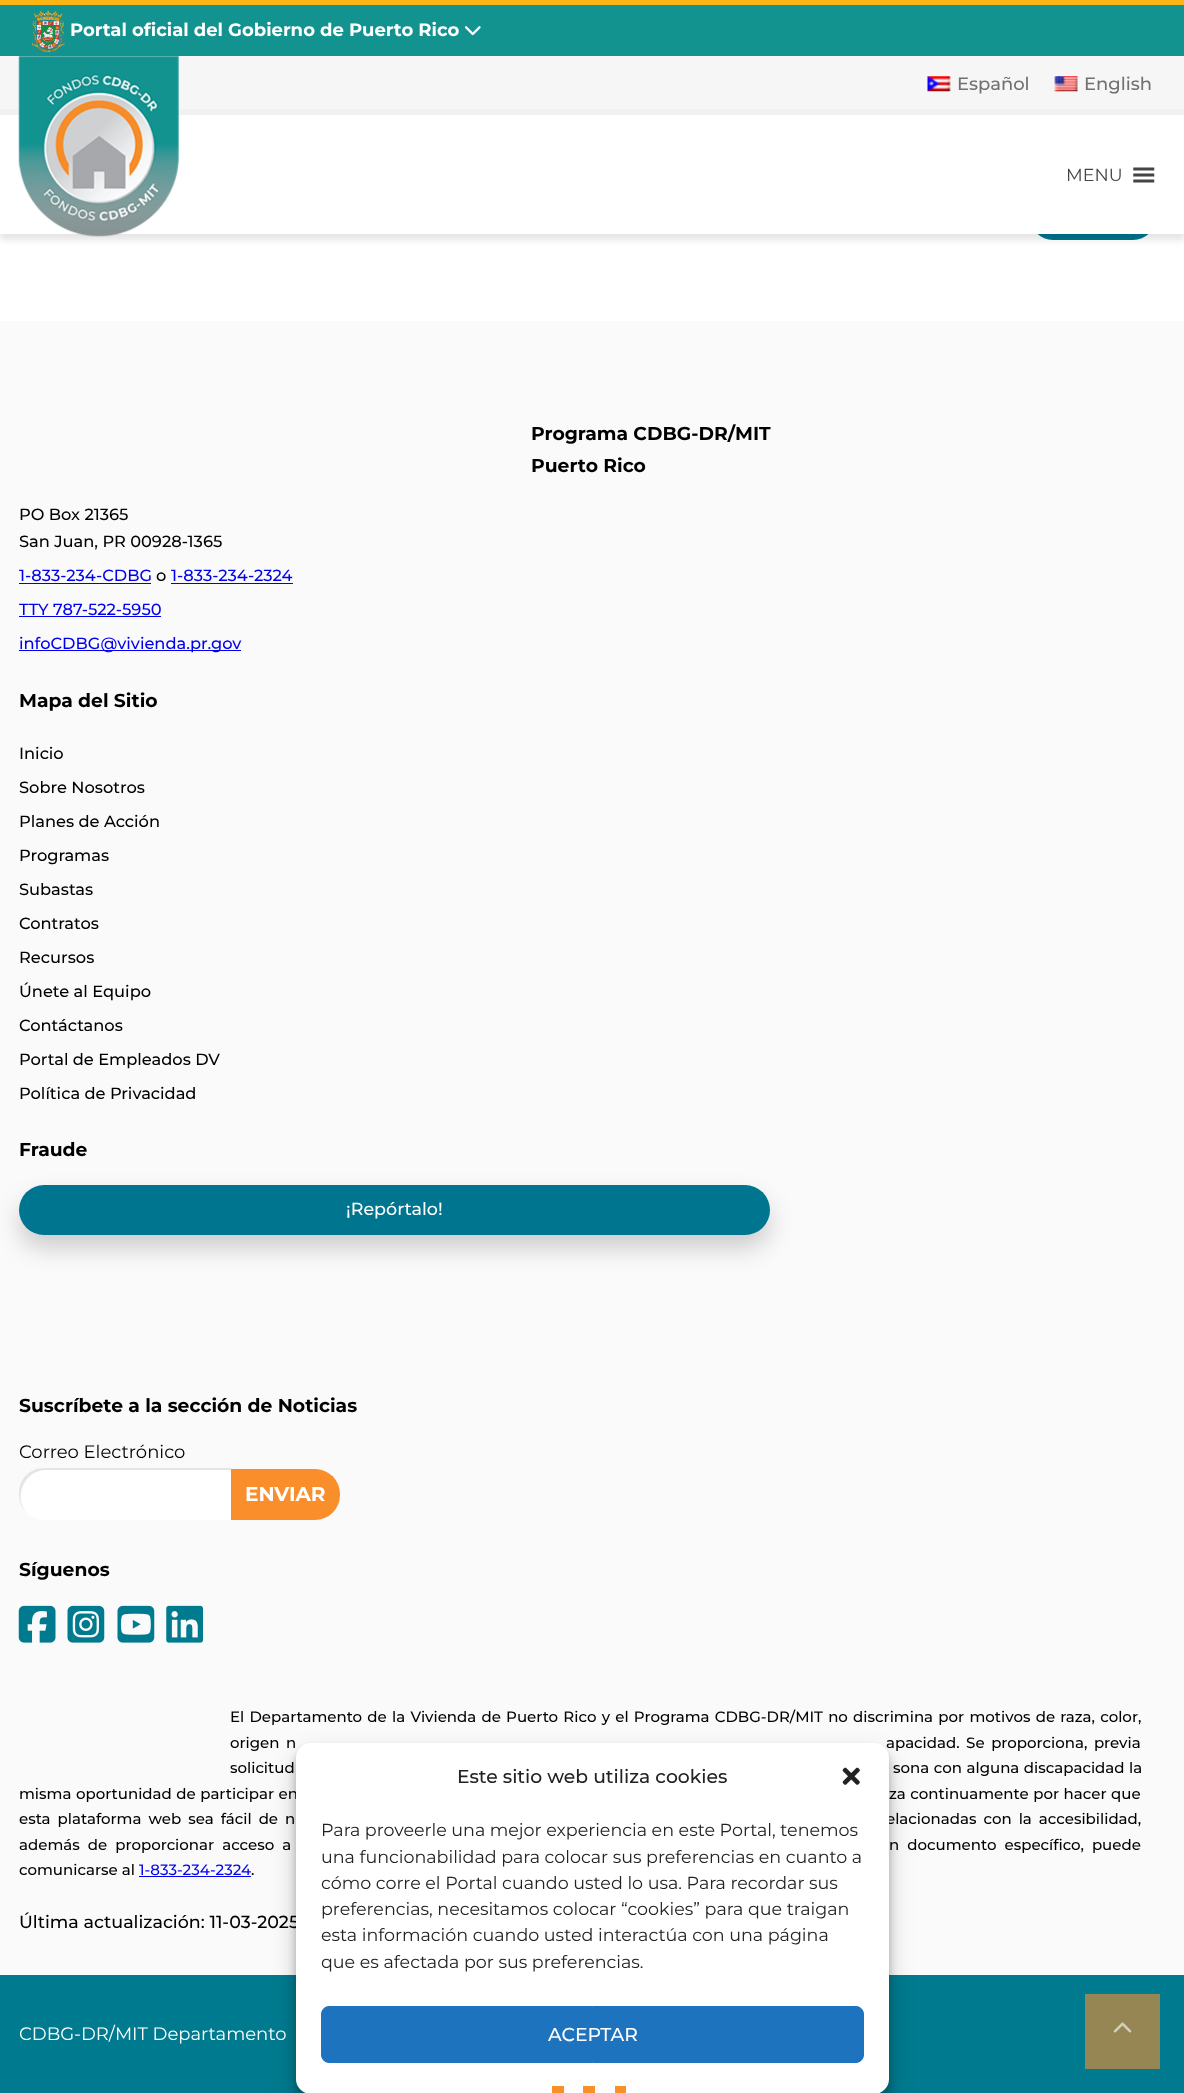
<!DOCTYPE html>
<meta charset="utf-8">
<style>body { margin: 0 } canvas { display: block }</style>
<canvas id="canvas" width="1184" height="2093"></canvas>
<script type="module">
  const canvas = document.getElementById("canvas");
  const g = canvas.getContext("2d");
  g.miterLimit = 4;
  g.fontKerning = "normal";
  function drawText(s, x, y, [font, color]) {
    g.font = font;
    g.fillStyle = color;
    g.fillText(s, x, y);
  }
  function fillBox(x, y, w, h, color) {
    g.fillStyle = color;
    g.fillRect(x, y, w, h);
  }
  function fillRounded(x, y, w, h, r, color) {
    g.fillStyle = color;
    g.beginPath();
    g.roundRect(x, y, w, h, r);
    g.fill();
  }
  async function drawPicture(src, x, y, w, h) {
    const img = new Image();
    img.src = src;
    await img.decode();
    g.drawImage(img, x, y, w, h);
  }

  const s1 = ["bold 18px Montserrat", "#FFFFFF"];
  const s2 = ["500 18px Montserrat", "#717171"];
  const s3 = ["17.5px Montserrat", "#444444"];
  const s4 = ["bold 18.75px Montserrat", "#000000"];
  const s5 = ["500 16.25px Montserrat", "#000000"];
  const s6 = ["500 16.25px Montserrat", "#0000EE"];
  const s7 = ["500 17.5px Montserrat", "#FFFFFF"];
  const s8 = ["18px Montserrat", "#000000"];
  const s9 = ["bold 20px Montserrat", "#FFFFFF"];
  const s10 = ["500 15px Montserrat", "#000000"];
  const s11 = ["500 15px Montserrat", "#0000EE"];
  const s12 = ["500 17.5px Montserrat", "#000000"];
  const s13 = ["18px Montserrat", "#FFFFFF"];
  const s14 = ["500 18.75px Montserrat", "#222222"];
  const s15 = ["17.5px Montserrat", "#222222"];
  const s16 = ["500 18.75px Montserrat", "#FFFFFF"];

  fillBox(0, 0, 1184, 2093, "#FFFFFF");
  fillBox(0, 56, 1184, 53, "#F6F6F6");
  fillBox(0, 0, 1184, 5, "#FDB514");
  fillBox(0, 5, 1184, 51, "#139390");
  await drawPicture("pic1.png", 31, 10, 34, 43);
  drawText("Portal oficial del Gobierno de Puerto Rico", 70, 36, s1);
  await drawPicture("pic2.png", 464, 26, 17, 10);
  await drawPicture("pic3.png", 927, 76, 24, 16);
  drawText("Español", 957, 90, s2);
  await drawPicture("pic4.png", 1054, 76, 24, 16);
  drawText("English", 1084, 90, s2);
  fillRounded(1030, 194, 126, 46, 23, "#00758F");
  g.fillStyle = "rgba(0, 0, 0, 0.1)";
  g.filter = "blur(3px)";
  g.beginPath();
  g.rect(0, 115, 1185, 125);
  g.fill();
  g.filter = "none";
  fillBox(0, 115, 1184, 119, "#FFFFFF");
  fillBox(0, 109, 1184, 6, "#F1F1F1");
  await drawPicture("pic5.png", 18, 56, 161, 181);
  drawText("MENU", 1066, 181, s3);
  await drawPicture("pic6.png", 1133, 167, 22, 16);
  fillBox(0, 321, 1184, 1654, "#FAFAFA");
  drawText("Programa CDBG-DR/MIT", 531, 440, s4);
  drawText("Puerto Rico", 531, 472, s4);
  drawText("PO Box 21365", 19, 520, s5);
  drawText("San Juan, PR 00928-1365", 19, 547, s5);
  drawText("1-833-234-CDBG", 19, 581, s6);
  fillBox(19, 583, 132, 1, "#0000EE");
  drawText("o", 156, 581, s5);
  drawText("1-833-234-2324", 171, 581, s6);
  fillBox(171, 583, 122, 1, "#0000EE");
  drawText("TTY 787-522-5950", 19, 615, s6);
  fillBox(19, 616, 142, 1, "#0000EE");
  fillBox(19, 650, 222, 1, "#0000EE");
  drawText("infoCDBG@vivienda.pr.gov", 19, 649, s6);
  drawText("Mapa del Sitio", 19, 707, s4);
  drawText("Inicio", 19, 759, s5);
  drawText("Sobre Nosotros", 19, 793, s5);
  drawText("Planes de Acción", 19, 827, s5);
  drawText("Programas", 19, 861, s5);
  drawText("Subastas", 19, 895, s5);
  drawText("Contratos", 19, 929, s5);
  drawText("Recursos", 19, 963, s5);
  drawText("Únete al Equipo", 19, 997, s5);
  drawText("Contáctanos", 19, 1031, s5);
  drawText("Portal de Empleados DV", 19, 1065, s5);
  drawText("Política de Privacidad", 19, 1099, s5);
  drawText("Fraude", 19, 1156, s4);
  g.fillStyle = "rgba(0, 0, 0, 0.18)";
  g.filter = "blur(12.5px)";
  g.beginPath();
  g.roundRect(19, 1198, 751, 50, 25);
  g.fill();
  g.filter = "none";
  fillRounded(19, 1185, 751, 50, 25, "#00758F");
  drawText("¡Repórtalo!", 346, 1215, s7);
  drawText("Suscríbete a la sección de Noticias", 19, 1412, s4);
  drawText("Correo Electrónico", 19, 1458, s8);
  g.fillStyle = "#FFFFFF";
  g.beginPath();
  g.roundRect(19, 1468, 212, 52, [25, 0, 0, 25]);
  g.fill();
  g.fillStyle = "rgba(0, 0, 0, 0.1)";
  g.beginPath();
  g.moveTo(46, 1470);
  g.lineTo(231, 1470);
  g.lineTo(231, 1468);
  g.lineTo(44, 1468);
  g.bezierCurveTo(30, 1468, 19, 1479, 19, 1493);
  g.lineTo(19, 1495);
  g.bezierCurveTo(19, 1502, 22, 1508, 26, 1512);
  g.bezierCurveTo(13, 1496, 25, 1470, 46, 1470);
  g.closePath();
  g.fill();
  g.fillStyle = "#F98E2B";
  g.beginPath();
  g.roundRect(231, 1469, 109, 51, [0, 25, 25, 0]);
  g.fill();
  drawText("ENVIAR", 245, 1501, s9);
  drawText("Síguenos", 19, 1576, s4);
  await drawPicture("pic7.png", 18, 1605, 38, 38);
  await drawPicture("pic8.png", 67, 1605, 38, 38);
  await drawPicture("pic9.png", 117, 1605, 38, 38);
  await drawPicture("pic10.png", 166, 1605, 37, 38);
  g.wordSpacing = "1.2px";
  drawText("El Departamento de la Vivienda de Puerto Rico y el Programa CDBG-DR/MIT no discrimina por motivos de raza, color,", 230, 1722, s10);
  g.wordSpacing = "2.5px";
  drawText("origen n", 230, 1748, s10);
  drawText("apacidad. Se proporciona, previa", 886, 1748, s10);
  g.wordSpacing = "0.5px";
  drawText("solicitud", 230, 1773, s10);
  drawText("sona con alguna discapacidad la", 893, 1773, s10);
  drawText("misma oportunidad de participar en", 19, 1799, s10);
  drawText("za continuamente por hacer que", 889, 1799, s10);
  g.wordSpacing = "3px";
  drawText("esta plataforma web sea fácil de n", 19, 1824, s10);
  drawText("elacionadas con la accesibilidad,", 886, 1824, s10);
  g.wordSpacing = "4px";
  drawText("además de proporcionar acceso a", 19, 1850, s10);
  drawText("n documento específico, puede", 889, 1850, s10);
  g.wordSpacing = "0px";
  drawText("comunicarse al", 19, 1875, s10);
  drawText("1-833-234-2324", 139, 1875, s11);
  fillBox(139, 1876, 112, 1, "#0000EE");
  drawText(".", 251, 1875, s10);
  drawText("Última actualización: 11-03-2025", 19, 1928, s12);
  fillBox(0, 1975, 1184, 118, "#007A8F");
  drawText("CDBG-DR/MIT Departamento", 19, 2040, s13);
  fillBox(1085, 1994, 75, 75, "#958653");
  await drawPicture("pic11.png", 1113, 2022, 19, 11);
  g.fillStyle = "rgba(0, 0, 0, 0.23)";
  g.filter = "blur(4px)";
  g.beginPath();
  g.roundRect(296, 1750, 593, 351, 15);
  g.fill();
  g.filter = "none";
  g.fillStyle = "rgba(0, 0, 0, 0.19)";
  g.filter = "blur(12.5px)";
  g.beginPath();
  g.roundRect(296, 1755, 593, 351, 15);
  g.fill();
  g.filter = "none";
  fillRounded(296, 1743, 593, 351, 15, "#FFFFFF");
  drawText("Este sitio web utiliza cookies", 457, 1783, s14);
  await drawPicture("pic12.png", 842, 1767, 18, 18);
  drawText("Para proveerle una mejor experiencia en este Portal, tenemos", 321, 1836, s15);
  drawText("una funcionabilidad para colocar sus preferencias en cuanto a", 321, 1863, s15);
  drawText("cómo corre el Portal cuando usted lo usa. Para recordar sus", 321, 1889, s15);
  drawText("preferencias, necesitamos colocar “cookies” para que traigan", 321, 1915, s15);
  drawText("esta información cuando usted interactúa con una página", 321, 1941, s15);
  drawText("que es afectada por sus preferencias.", 321, 1968, s15);
  g.fillStyle = "#1E73BE";
  g.beginPath();
  g.roundRect(321.5, 2006.5, 542, 56, 7.5);
  g.fill();
  g.strokeStyle = "#1E73BE";
  g.stroke();
  drawText("ACEPTAR", 548, 2041, s16);
  fillBox(552, 2086, 12, 7, "#F98E2B");
  fillBox(583, 2086, 12, 7, "#F98E2B");
  fillBox(615, 2086, 11, 7, "#F98E2B");
</script>
